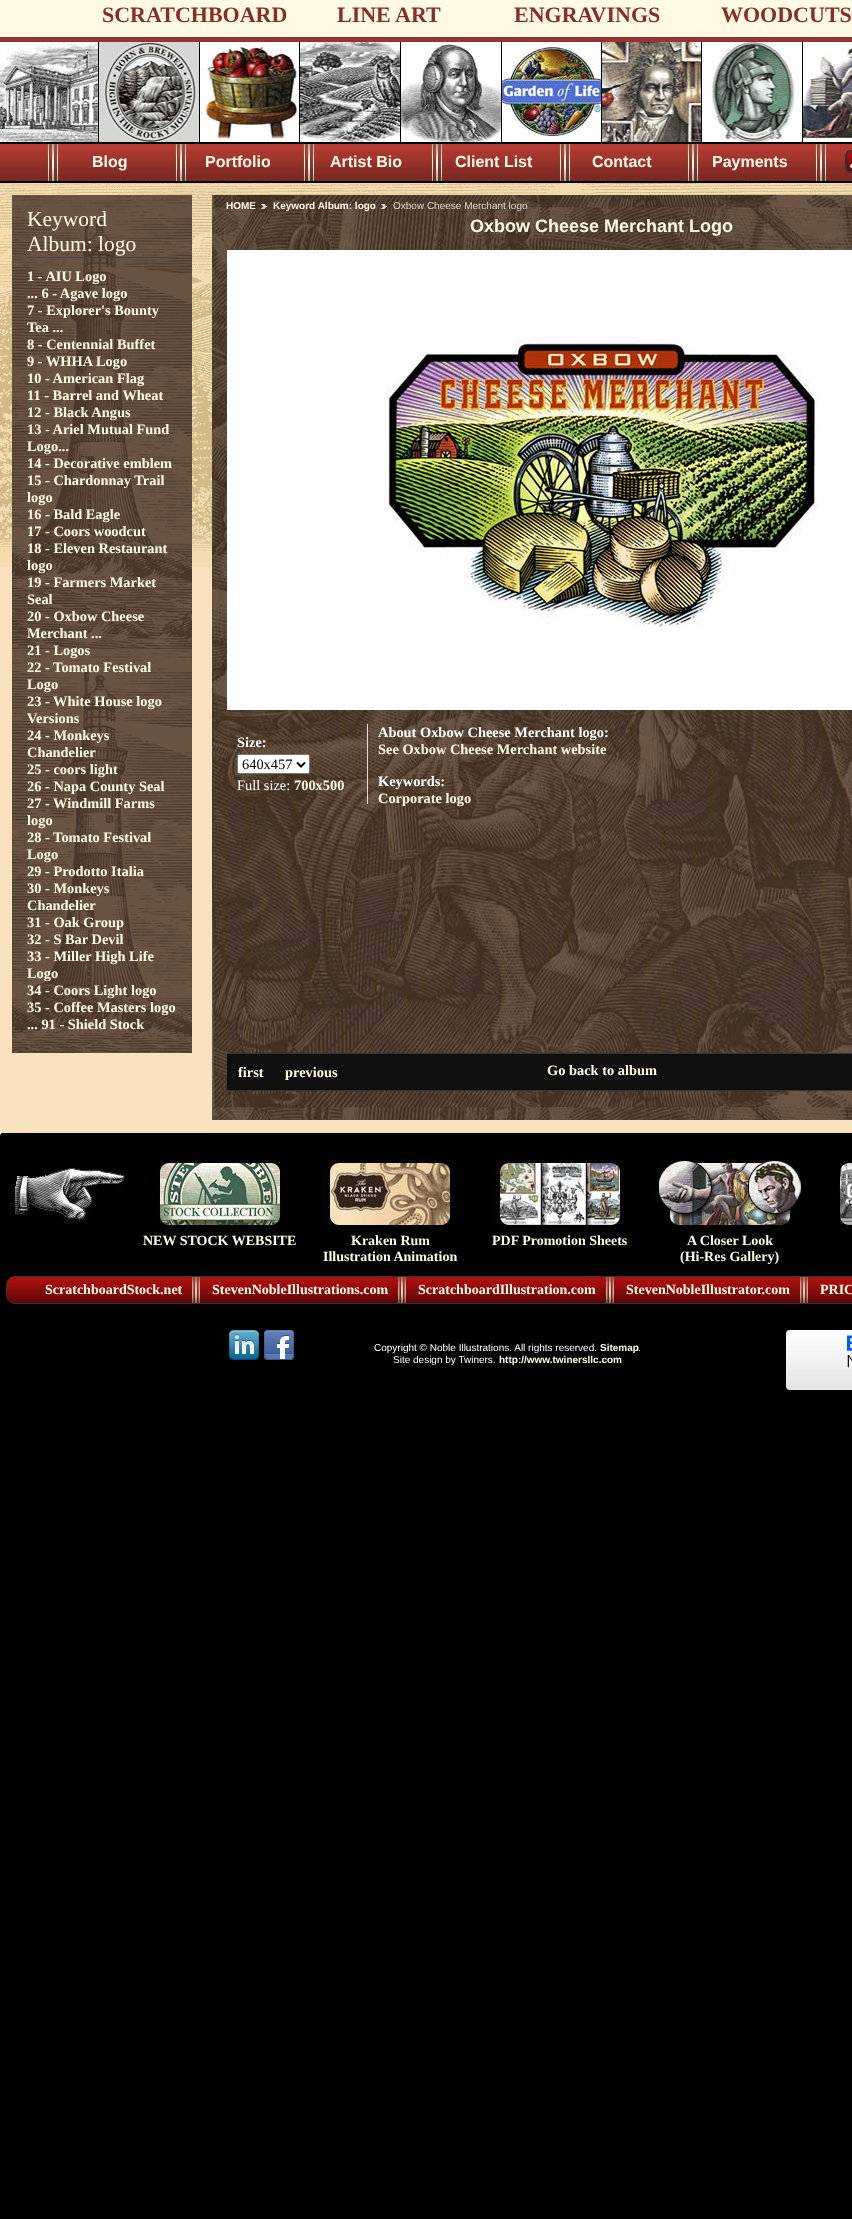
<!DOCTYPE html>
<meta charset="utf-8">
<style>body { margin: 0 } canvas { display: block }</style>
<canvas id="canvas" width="852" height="2219"></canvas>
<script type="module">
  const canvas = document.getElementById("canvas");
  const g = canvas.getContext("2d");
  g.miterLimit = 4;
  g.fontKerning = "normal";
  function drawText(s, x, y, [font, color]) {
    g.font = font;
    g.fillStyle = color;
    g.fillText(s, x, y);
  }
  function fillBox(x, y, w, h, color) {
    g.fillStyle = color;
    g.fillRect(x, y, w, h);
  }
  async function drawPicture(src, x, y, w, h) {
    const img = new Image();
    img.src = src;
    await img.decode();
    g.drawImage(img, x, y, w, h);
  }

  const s1 = ["bold 22px Liberation Serif", "#882D27"];
  const s2 = ["bold 16px Liberation Sans", "#FFFAE4"];
  const s3 = ["21.5px Liberation Serif", "#FFFAE4"];
  const s4 = ["bold 14.4px Liberation Serif", "#FFFAE4"];
  const s5 = ["bold 10px Liberation Sans", "#FFFAE4"];
  const s6 = ["10px Liberation Sans", "#DDDDDD"];
  const s7 = ["bold 18px Liberation Sans", "#FFFAE4"];
  const s8 = ["bold 14.4px Liberation Serif", "#FFFFFF"];
  const s9 = ["14.4px Liberation Serif", "#000000"];
  const s10 = ["14.4px Liberation Serif", "#FFFFFF"];
  const s11 = ["bold 14px Liberation Serif", "#FFFAE4"];
  const s12 = ["10px Liberation Sans", "#FFFFFF"];

  fillBox(0, 0, 852, 2219, "#000000");
  fillBox(0, 1132, 2, 4, "#FFFFFF");
  await drawPicture("pic1.png", 0, 0, 852, 183);
  drawText("SCRATCHBOARD", 102, 22, s1);
  drawText("LINE ART", 337, 22, s1);
  drawText("ENGRAVINGS", 514, 22, s1);
  drawText("WOODCUTS", 721, 22, s1);
  await drawPicture("pic2.png", 0, 42, 852, 100);
  await drawPicture("pic3.png", 46, 142, 14, 41);
  drawText("Blog", 92, 167, s2);
  await drawPicture("pic3.png", 174, 142, 14, 41);
  drawText("Portfolio", 205, 167, s2);
  await drawPicture("pic3.png", 302, 142, 14, 41);
  drawText("Artist Bio", 330, 167, s2);
  await drawPicture("pic3.png", 430, 142, 14, 41);
  drawText("Client List", 455, 167, s2);
  await drawPicture("pic3.png", 558, 142, 14, 41);
  drawText("Contact", 592, 167, s2);
  await drawPicture("pic3.png", 686, 142, 14, 41);
  drawText("Payments", 712, 167, s2);
  await drawPicture("pic3.png", 814, 142, 14, 41);
  await drawPicture("pic4.png", 845, 150, 7, 23);
  fillBox(0, 567, 852, 565, "#F8E2BD");
  await drawPicture("pic5.png", 0, 183, 852, 384);
  await drawPicture("pic6.png", 12, 195, 180, 858);
  fillBox(27, 257, 150, 1, "#444444");
  drawText("Keyword", 27, 226, s3);
  drawText("Album: logo", 27, 251, s3);
  drawText("1 - AIU Logo", 27, 281, s4);
  drawText("... 6 - Agave logo", 27, 298, s4);
  drawText("7 - Explorer's Bounty", 27, 315, s4);
  drawText("Tea ...", 27, 332, s4);
  drawText("8 - Centennial Buffet", 27, 349, s4);
  drawText("9 - WHHA Logo", 27, 366, s4);
  drawText("10 - American Flag", 27, 383, s4);
  drawText("11 - Barrel and Wheat", 27, 400, s4);
  drawText("12 - Black Angus", 27, 417, s4);
  drawText("13 - Ariel Mutual Fund", 27, 434, s4);
  drawText("Logo...", 27, 451, s4);
  drawText("14 - Decorative emblem", 27, 468, s4);
  drawText("15 - Chardonnay Trail", 27, 485, s4);
  drawText("logo", 27, 502, s4);
  drawText("16 - Bald Eagle", 27, 519, s4);
  drawText("17 - Coors woodcut", 27, 536, s4);
  drawText("18 - Eleven Restaurant", 27, 553, s4);
  drawText("logo", 27, 570, s4);
  drawText("19 - Farmers Market", 27, 587, s4);
  drawText("Seal", 27, 604, s4);
  drawText("20 - Oxbow Cheese", 27, 621, s4);
  drawText("Merchant ...", 27, 638, s4);
  drawText("21 - Logos", 27, 655, s4);
  drawText("22 - Tomato Festival", 27, 672, s4);
  drawText("Logo", 27, 689, s4);
  drawText("23 - White House logo", 27, 706, s4);
  drawText("Versions", 27, 723, s4);
  drawText("24 - Monkeys", 27, 740, s4);
  drawText("Chandelier", 27, 757, s4);
  drawText("25 - coors light", 27, 774, s4);
  drawText("26 - Napa County Seal", 27, 791, s4);
  drawText("27 - Windmill Farms", 27, 808, s4);
  drawText("logo", 27, 825, s4);
  drawText("28 - Tomato Festival", 27, 842, s4);
  drawText("Logo", 27, 859, s4);
  drawText("29 - Prodotto Italia", 27, 876, s4);
  drawText("30 - Monkeys", 27, 893, s4);
  drawText("Chandelier", 27, 910, s4);
  drawText("31 - Oak Group", 27, 927, s4);
  drawText("32 - S Bar Devil", 27, 944, s4);
  drawText("33 - Miller High Life", 27, 961, s4);
  drawText("Logo", 27, 978, s4);
  drawText("34 - Coors Light logo", 27, 995, s4);
  drawText("35 - Coffee Masters logo", 27, 1012, s4);
  drawText("... 91 - Shield Stock", 27, 1029, s4);
  await drawPicture("pic7.png", 212, 195, 640, 925);
  drawText("HOME", 226, 209, s5);
  await drawPicture("pic8.png", 261, 204, 6, 5);
  drawText("Keyword Album: logo", 273, 209, s5);
  await drawPicture("pic9.png", 381, 204, 6, 5);
  drawText("Oxbow Cheese Merchant logo", 393, 209, s6);
  drawText("Oxbow Cheese Merchant Logo", 470, 232, s7);
  fillBox(227, 250, 625, 460, "#FFFFFF");
  await drawPicture("pic10.png", 386, 338, 432, 290);
  fillBox(367, 724, 1, 80, "#DDDDDD");
  drawText("Size:", 237, 747, s8);
  g.beginPath();
  g.roundRect(237.5, 754.5, 72, 19, 1.5);
  g.fill();
  g.strokeStyle = "#767676";
  g.stroke();
  g.beginPath();
  g.moveTo(297, 762.5);
  g.lineTo(301, 766.5);
  g.lineTo(305, 762.5);
  g.strokeStyle = "#000000";
  g.lineWidth = 2;
  g.stroke();
  drawText("640x457", 242, 769, s9);
  drawText("Full size:", 237, 790, s10);
  drawText("700x500", 294, 790, s4);
  drawText("About Oxbow Cheese Merchant logo:", 378, 737, s8);
  drawText("See Oxbow Cheese Merchant website", 378, 754, s4);
  drawText("Keywords:", 378, 786, s8);
  drawText("Corporate logo", 378, 803, s4);
  fillBox(227, 1054, 625, 36, "#0F0F0F");
  fillBox(227, 1053, 625, 1, "#333333");
  fillBox(227, 1090, 625, 1, "#333333");
  drawText("first", 238, 1077, s4);
  drawText("previous", 285, 1077, s4);
  drawText("Go back to album", 547, 1075, s4);
  g.fillStyle = "#000000";
  g.beginPath();
  g.moveTo(4, 1132);
  g.lineTo(852, 1132);
  g.bezierCurveTo(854, 1132, 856, 1134, 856, 1136);
  g.lineTo(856, 1393);
  g.lineTo(0, 1393);
  g.lineTo(0, 1136);
  g.bezierCurveTo(0, 1134, 2, 1132, 4, 1132);
  g.closePath();
  g.fill();
  fillBox(2, 1132, 850, 1, "#F8E2BD");
  await drawPicture("pic11.png", 13, 1167, 112, 56);
  await drawPicture("pic12.png", 833, 1159, 19, 70);
  await drawPicture("pic13.png", 153, 1159, 128, 70);
  drawText("NEW STOCK WEBSITE", 143, 1245, s11);
  await drawPicture("pic14.png", 323, 1159, 128, 70);
  drawText("Kraken Rum", 351, 1245, s11);
  drawText("Illustration Animation", 323, 1261, s11);
  await drawPicture("pic15.png", 493, 1159, 128, 70);
  drawText("PDF Promotion Sheets", 492, 1245, s11);
  await drawPicture("pic16.png", 655, 1159, 149, 70);
  drawText("A Closer Look", 687, 1245, s11);
  drawText("(Hi-Res Gallery)", 680, 1261, s11);
  await drawPicture("pic17.png", 6, 1276, 846, 28);
  drawText("ScratchboardStock.net", 45, 1294, s11);
  await drawPicture("pic18.png", 192, 1275, 8, 30);
  drawText("StevenNobleIllustrations.com", 212, 1294, s11);
  await drawPicture("pic18.png", 398, 1275, 8, 30);
  drawText("ScratchboardIllustration.com", 418, 1294, s11);
  await drawPicture("pic18.png", 606, 1275, 8, 30);
  drawText("StevenNobleIllustrator.com", 626, 1294, s11);
  await drawPicture("pic18.png", 800, 1275, 8, 30);
  drawText("PRIC", 820, 1294, s11);
  await drawPicture("pic19.png", 229, 1330, 30, 30);
  await drawPicture("pic20.png", 264, 1330, 30, 30);
  drawText("Copyright © Noble Illustrations. All rights reserved.", 374, 1351, s12);
  drawText("Sitemap", 600, 1351, s5);
  drawText(".", 638, 1351, s12);
  drawText("Site design by Twiners.", 393, 1363, s12);
  drawText("http://www.twinersllc.com", 499, 1363, s5);
  await drawPicture("pic21.png", 786, 1330, 66, 60);
</script>
